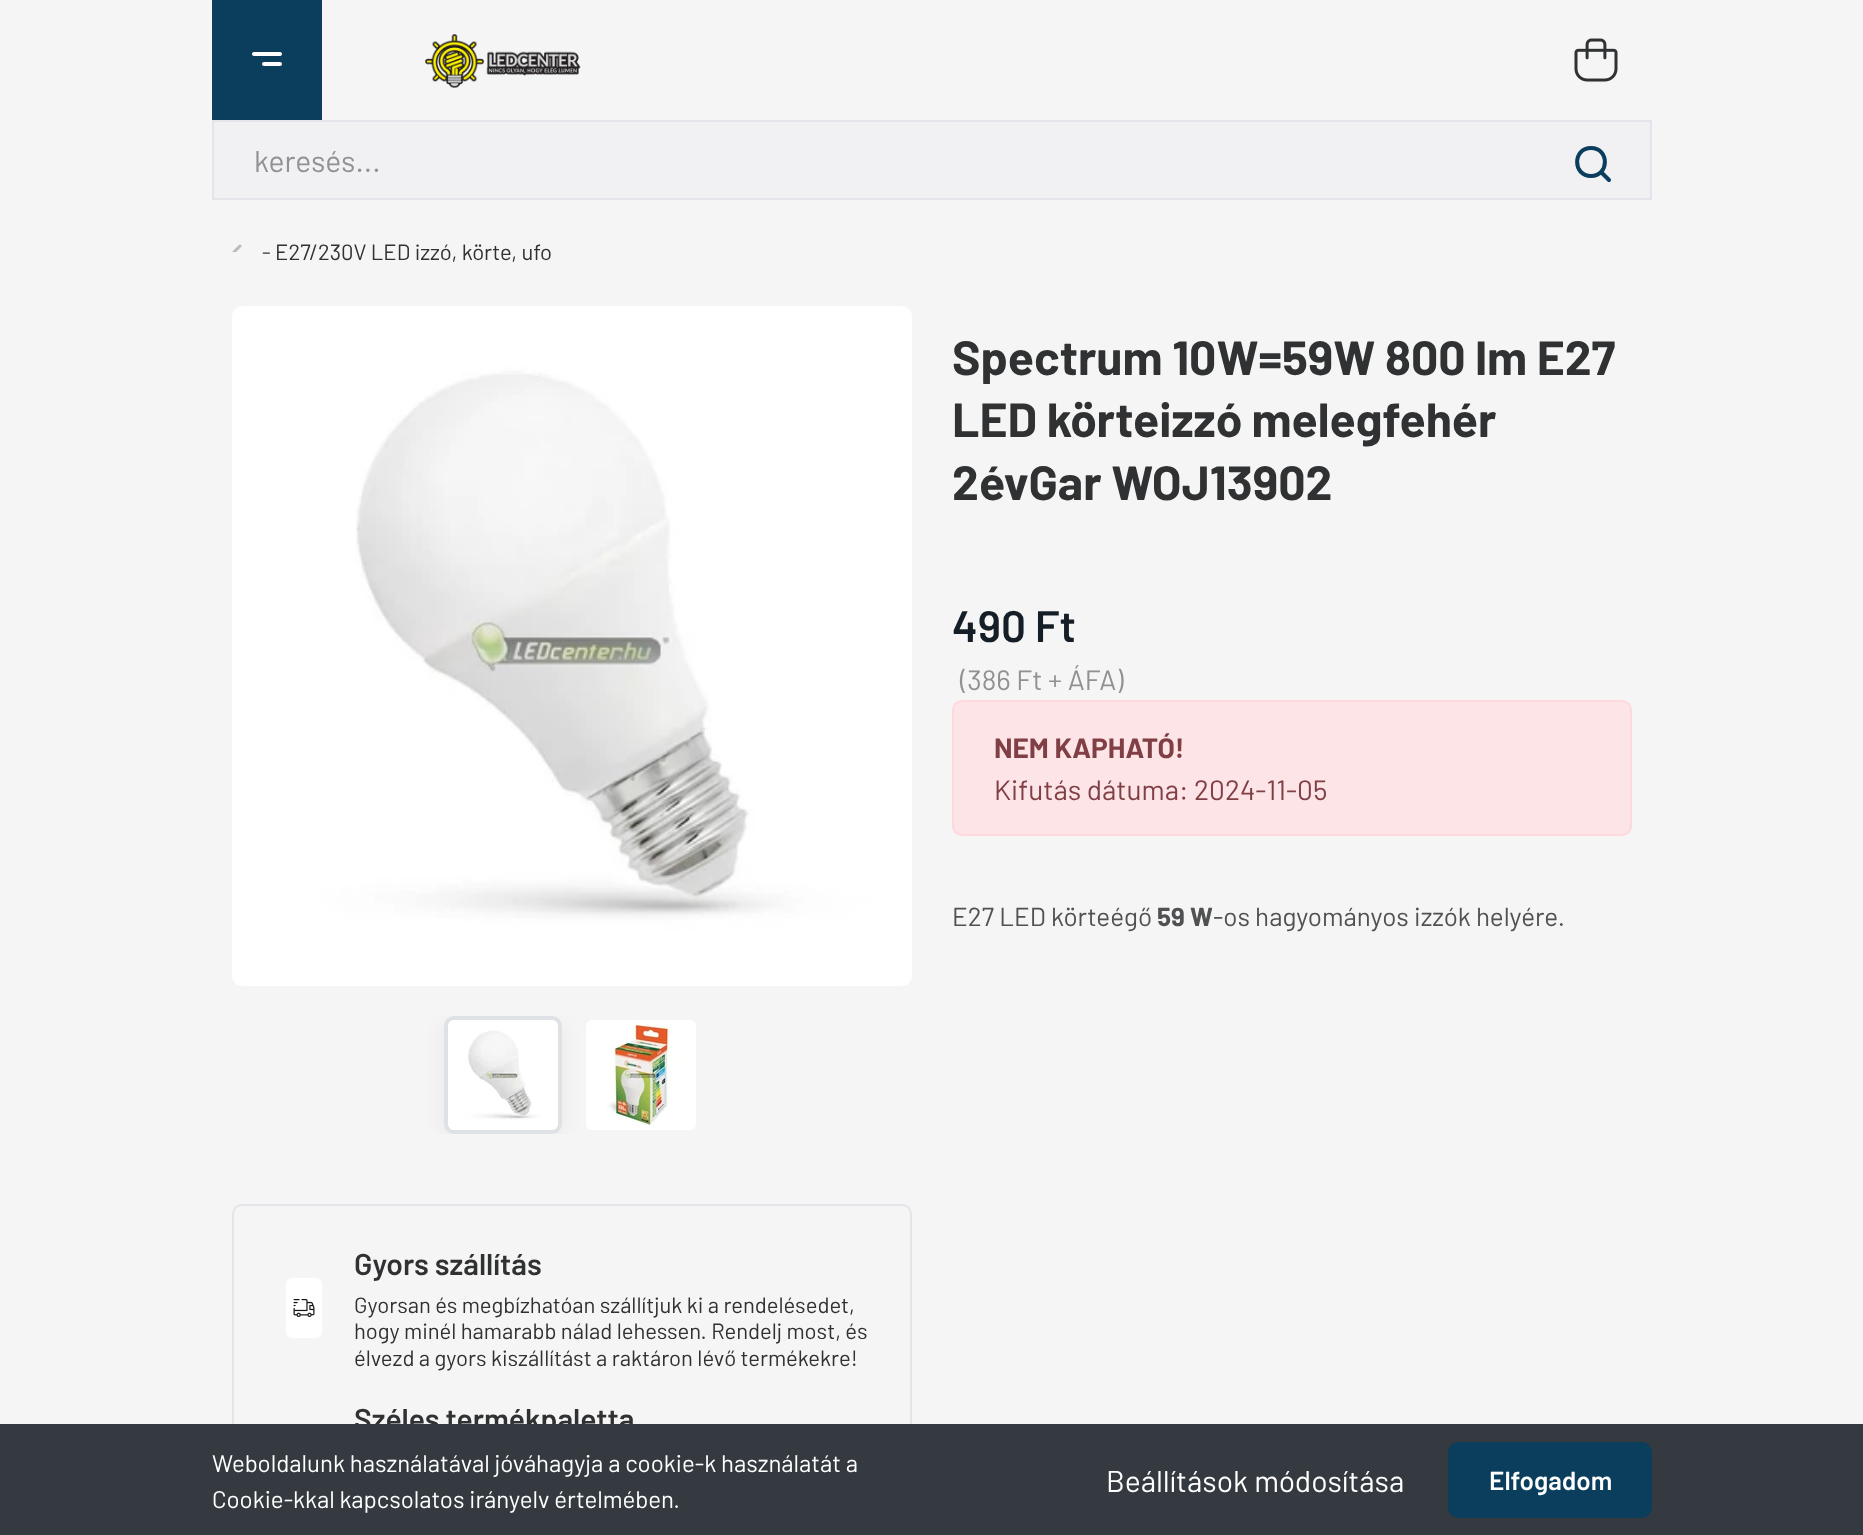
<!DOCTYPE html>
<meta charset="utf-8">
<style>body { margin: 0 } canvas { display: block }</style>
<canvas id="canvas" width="1863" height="1535"></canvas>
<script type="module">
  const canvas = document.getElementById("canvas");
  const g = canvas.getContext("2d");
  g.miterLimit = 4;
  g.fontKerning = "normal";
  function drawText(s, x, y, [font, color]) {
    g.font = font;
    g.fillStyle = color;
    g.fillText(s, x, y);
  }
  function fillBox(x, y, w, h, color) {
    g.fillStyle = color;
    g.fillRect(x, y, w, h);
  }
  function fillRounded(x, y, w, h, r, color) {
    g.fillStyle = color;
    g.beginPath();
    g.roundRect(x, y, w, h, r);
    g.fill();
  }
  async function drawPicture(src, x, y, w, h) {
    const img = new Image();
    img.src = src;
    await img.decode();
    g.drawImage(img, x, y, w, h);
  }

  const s1 = ["30px Barlow", "#909193"];
  const s2 = ["22px Barlow", "#2F3132"];
  const s3 = ["bold 48px Barlow", "#2F3132"];
  const s4 = ["600 44px Barlow", "#151E26"];
  const s5 = ["28px Barlow", "#909193"];
  const s6 = ["bold 28px Barlow", "#803F44"];
  const s7 = ["28px Barlow", "#803F44"];
  const s8 = ["26px Barlow", "#4F5153"];
  const s9 = ["bold 26px Barlow", "#4F5153"];
  const s10 = ["600 30px Barlow", "#2F3132"];
  const s11 = ["24px Barlow", "#FFFFFF"];
  const s12 = ["30px Barlow", "#FFFFFF"];
  const s13 = ["600 26px Barlow", "#FFFFFF"];

  fillBox(0, 0, 1863, 1535, "#F5F5F5");
  fillBox(212, 0, 110, 120, "#0A3E5C");
  fillRounded(252, 52, 30, 4, 2, "#FFFFFF");
  fillRounded(262, 62, 20, 4, 2, "#FFFFFF");
  await drawPicture("pic1.png", 425, 34, 156, 54);
  await drawPicture("pic2.png", 1574, 38, 44, 44);
  g.fillStyle = "#F1F1F4";
  g.beginPath();
  g.rect(213, 121, 1438, 78);
  g.fill();
  g.strokeStyle = "#E4E4EA";
  g.lineWidth = 2;
  g.stroke();
  drawText("keresés...", 254, 172, s1);
  g.beginPath();
  g.moveTo(1609, 180);
  g.lineTo(1601, 172);
  g.moveTo(1591, 176);
  g.bezierCurveTo(1572.5, 176, 1572.5, 148, 1591, 148);
  g.bezierCurveTo(1609.5, 148, 1609.5, 176, 1591, 176);
  g.closePath();
  g.strokeStyle = "#0A3E5C";
  g.lineWidth = 4;
  g.lineCap = "round";
  g.lineJoin = "round";
  g.stroke();
  await drawPicture("pic3.png", 232, 244, 10, 8);
  drawText("- E27/230V LED izzó, körte, ufo", 262, 260, s2);
  drawText("Spectrum 10W=59W 800 lm E27", 952, 375, s3);
  drawText("LED körteizzó melegfehér", 952, 437, s3);
  drawText("2évGar WOJ13902", 952, 500, s3);
  drawText("490 Ft", 952, 642, s4);
  drawText("(386 Ft + ÁFA)", 960, 690, s5);
  g.fillStyle = "#FDE4E6";
  g.beginPath();
  g.roundRect(953, 701, 678, 134, 9);
  g.fill();
  g.strokeStyle = "#FDD9DC";
  g.lineWidth = 2;
  g.lineJoin = "miter";
  g.stroke();
  drawText("NEM KAPHATÓ!", 994, 758, s6);
  drawText("Kifutás dátuma: 2024-11-05", 994, 800, s7);
  drawText("E27 LED körteégő", 952, 926, s8);
  drawText("59 W", 1157, 926, s9);
  drawText("-os hagyományos izzók helyére.", 1213, 926, s8);
  await drawPicture("pic4.png", 232, 306, 680, 680);
  g.save();
  g.beginPath();
  g.rect(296, 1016, 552, 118);
  g.clip();
  g.fillStyle = "rgba(0, 0, 0, 0.05)";
  g.filter = "blur(10px)";
  g.beginPath();
  g.roundRect(444, 1022, 118, 118, 10);
  g.fill();
  g.filter = "none";
  g.restore();
  g.beginPath();
  g.roundRect(446, 1018, 114, 114, 8);
  g.strokeStyle = "#DEE2E6";
  g.lineWidth = 4;
  g.stroke();
  await drawPicture("pic5.png", 448, 1020, 110, 110);
  await drawPicture("pic6.png", 586, 1020, 110, 110);
  g.beginPath();
  g.roundRect(233, 1205, 678, 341, 9);
  g.strokeStyle = "#E4E4EA";
  g.lineWidth = 2;
  g.stroke();
  await drawPicture("pic7.png", 286, 1278, 36, 60);
  drawText("Gyors szállítás", 354, 1275, s10);
  drawText("Gyorsan és megbízhatóan szállítjuk ki a rendelésedet,", 354, 1313, s2);
  drawText("hogy minél hamarabb nálad lehessen. Rendelj most, és", 354, 1339, s2);
  drawText("élvezd a gyors kiszállítást a raktáron lévő termékekre!", 354, 1366, s2);
  drawText("Széles termékpaletta", 354, 1430, s10);
  fillBox(0, 1424, 1863, 111, "#343A40");
  drawText("Weboldalunk használatával jóváhagyja a cookie-k használatát a", 212, 1472, s11);
  drawText("Cookie-kkal kapcsolatos irányelv értelmében.", 212, 1508, s11);
  drawText("Beállítások módosítása", 1106, 1492, s12);
  fillRounded(1448, 1442, 204, 76, 10, "#0A3E5C");
  drawText("Elfogadom", 1489, 1490, s13);
</script>
